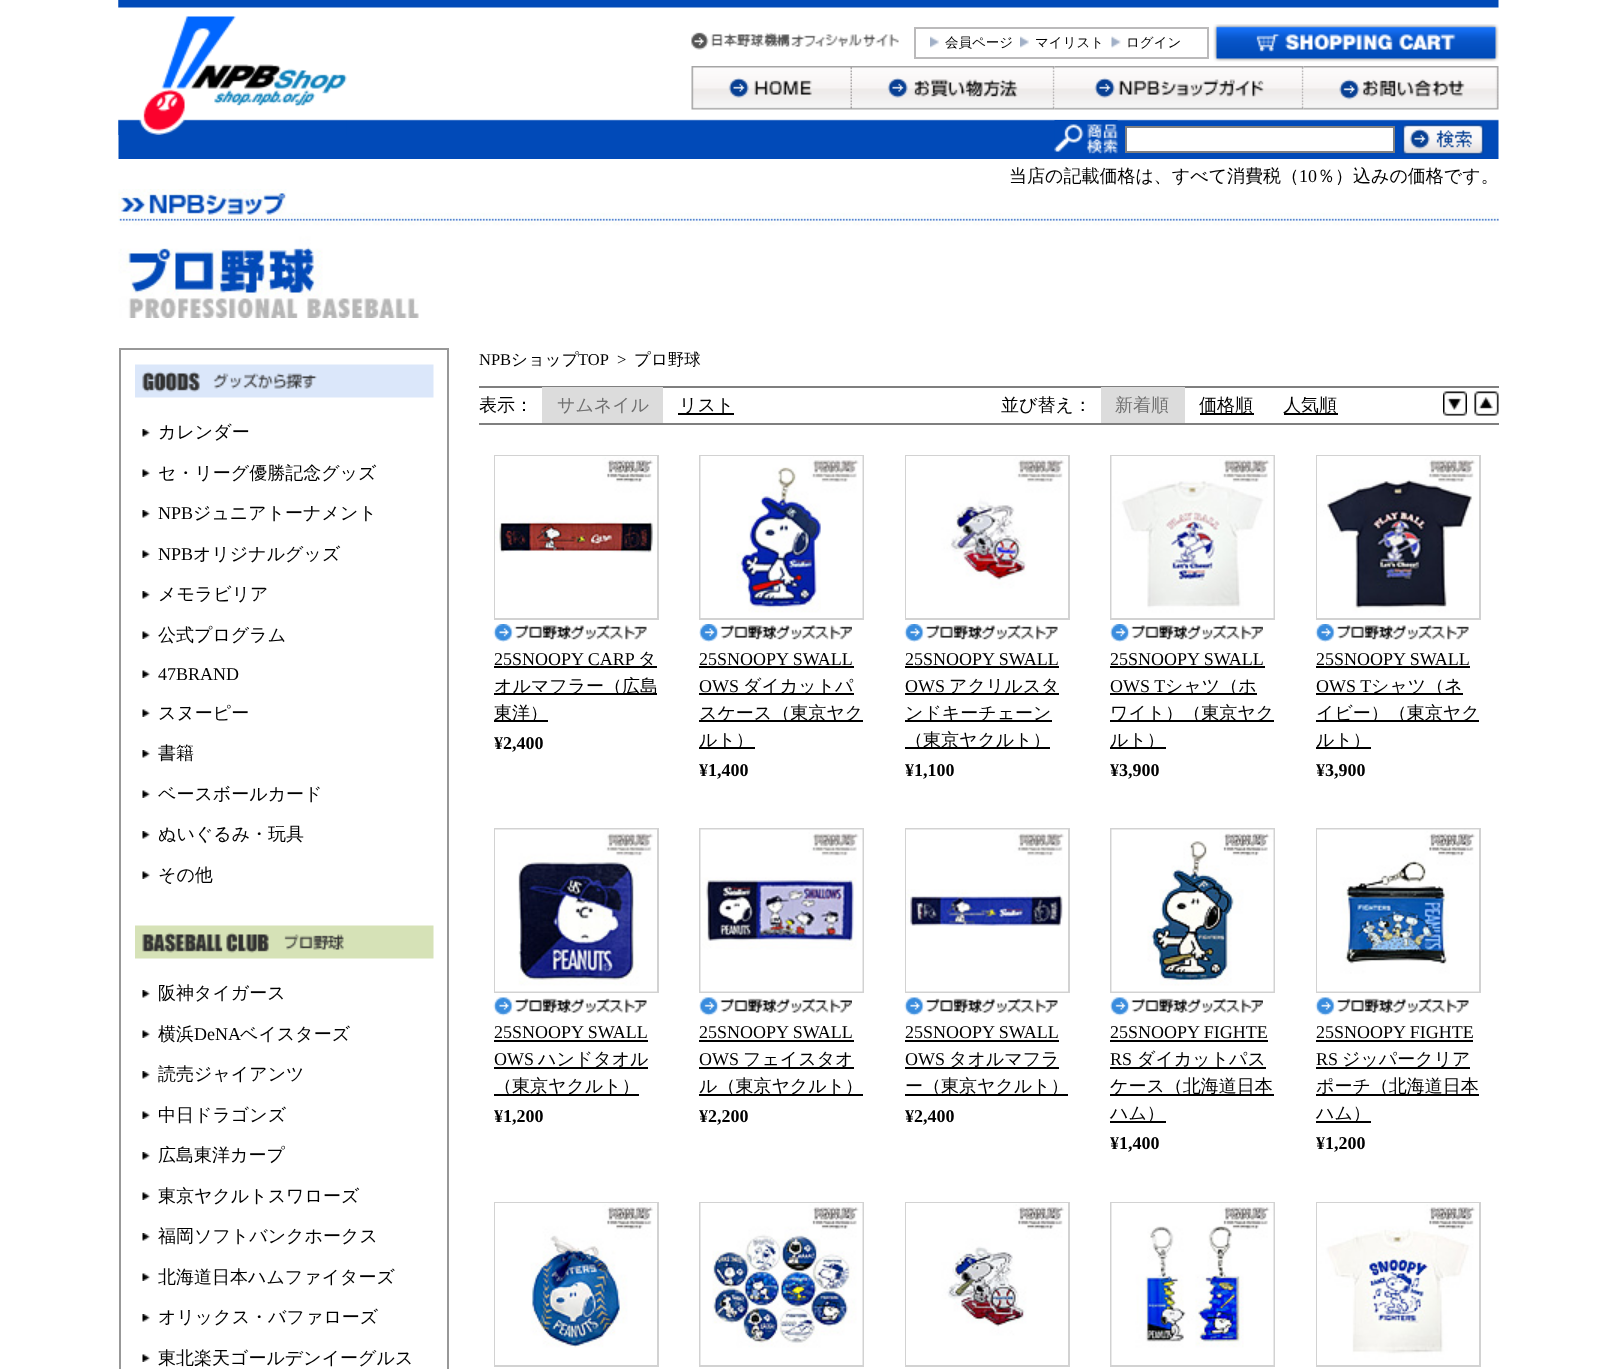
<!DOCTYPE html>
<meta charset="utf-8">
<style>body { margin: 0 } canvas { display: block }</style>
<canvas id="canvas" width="1617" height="1369"></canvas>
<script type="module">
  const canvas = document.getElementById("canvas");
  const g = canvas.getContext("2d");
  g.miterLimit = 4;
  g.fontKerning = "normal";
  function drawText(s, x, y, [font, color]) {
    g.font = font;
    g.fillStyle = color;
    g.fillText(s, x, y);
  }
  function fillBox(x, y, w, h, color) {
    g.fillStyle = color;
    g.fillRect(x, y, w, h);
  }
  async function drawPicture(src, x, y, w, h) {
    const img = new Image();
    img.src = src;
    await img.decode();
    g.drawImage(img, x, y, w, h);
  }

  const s1 = ["500 13.5px WenQuanYi Zen Hei", "#000000"];
  const s2 = ["500 18px WenQuanYi Zen Hei", "#000000"];
  const s3 = ["18px Liberation Serif", "#000000"];
  const s4 = ["16.5px Liberation Serif", "#000000"];
  const s5 = ["500 16.5px WenQuanYi Zen Hei", "#000000"];
  const s6 = ["500 18px WenQuanYi Zen Hei", "#717171"];
  const s7 = ["bold 18px Liberation Serif", "#000000"];

  fillBox(0, 0, 1617, 1369, "#FFFFFF");
  await drawPicture("pic1.png", 118, 0, 1381, 159);
  await drawPicture("pic2.png", 118, 0, 229, 135);
  await drawPicture("pic3.png", 691, 32, 208, 18);
  g.strokeStyle = "#BBBABB";
  g.lineWidth = 2;
  g.strokeRect(915, 28, 293, 30);
  await drawPicture("pic4.png", 930, 36, 9, 12);
  drawText("会員ページ", 945, 47, s1);
  await drawPicture("pic5.png", 1020, 36, 9, 12);
  drawText("マイリスト", 1035, 47, s1);
  await drawPicture("pic6.png", 1111, 36, 10, 12);
  drawText("ログイン", 1126, 47, s1);
  await drawPicture("pic7.png", 1213, 24, 286, 38);
  await drawPicture("pic8.png", 691, 66, 161, 44);
  await drawPicture("pic9.png", 852, 66, 203, 44);
  await drawPicture("pic10.png", 1054, 66, 250, 44);
  await drawPicture("pic11.png", 1303, 66, 196, 44);
  await drawPicture("pic12.png", 1054, 120, 64, 34);
  g.fillStyle = "#FFFFFF";
  g.beginPath();
  g.rect(1126, 127, 268, 25);
  g.fill();
  g.strokeStyle = "#808080";
  g.stroke();
  await drawPicture("pic13.png", 1402, 124, 82, 31);
  drawText("当店の記載価格は、すべて消費税（", 1009, 182, s2);
  drawText("10", 1299, 182, s3);
  drawText("％）込みの価格です。", 1317, 182, s2);
  await drawPicture("pic14.png", 118, 189, 1381, 129);
  g.strokeStyle = "#989898";
  g.strokeRect(120, 349, 328, 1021);
  await drawPicture("pic15.png", 135, 364, 299, 34);
  await drawPicture("pic16.png", 142, 429, 8, 8);
  drawText("カレンダー", 158, 438, s2);
  await drawPicture("pic17.png", 142, 469, 8, 8);
  drawText("セ・リーグ優勝記念グッズ", 158, 479, s2);
  await drawPicture("pic16.png", 142, 510, 8, 8);
  drawText("NPB", 158, 519, s3);
  drawText("ジュニアトーナメント", 193, 519, s2);
  await drawPicture("pic17.png", 142, 550, 8, 8);
  drawText("NPB", 158, 560, s3);
  drawText("オリジナルグッズ", 193, 560, s2);
  await drawPicture("pic16.png", 142, 591, 8, 8);
  drawText("メモラビリア", 158, 600, s2);
  await drawPicture("pic17.png", 142, 631, 8, 8);
  drawText("公式プログラム", 158, 641, s2);
  await drawPicture("pic17.png", 142, 670, 8, 8);
  drawText("47BRAND", 158, 680, s3);
  await drawPicture("pic17.png", 142, 709, 8, 8);
  drawText("スヌーピー", 158, 719, s2);
  await drawPicture("pic16.png", 142, 750, 8, 8);
  drawText("書籍", 158, 759, s2);
  await drawPicture("pic17.png", 142, 790, 8, 8);
  drawText("ベースボールカード", 158, 800, s2);
  await drawPicture("pic16.png", 142, 831, 8, 8);
  drawText("ぬいぐるみ・玩具", 158, 840, s2);
  await drawPicture("pic17.png", 142, 871, 8, 8);
  drawText("その他", 158, 881, s2);
  await drawPicture("pic18.png", 135, 925, 299, 34);
  await drawPicture("pic16.png", 142, 990, 8, 8);
  drawText("阪神タイガース", 158, 999, s2);
  await drawPicture("pic17.png", 142, 1030, 8, 8);
  drawText("横浜", 158, 1040, s2);
  drawText("DeNA", 194, 1040, s3);
  drawText("ベイスターズ", 240, 1040, s2);
  await drawPicture("pic16.png", 142, 1071, 8, 8);
  drawText("読売ジャイアンツ", 158, 1080, s2);
  await drawPicture("pic17.png", 142, 1111, 8, 8);
  drawText("中日ドラゴンズ", 158, 1121, s2);
  await drawPicture("pic16.png", 142, 1152, 8, 8);
  drawText("広島東洋カープ", 158, 1161, s2);
  await drawPicture("pic17.png", 142, 1192, 8, 8);
  drawText("東京ヤクルトスワローズ", 158, 1202, s2);
  await drawPicture("pic16.png", 142, 1233, 8, 8);
  drawText("福岡ソフトバンクホークス", 158, 1242, s2);
  await drawPicture("pic17.png", 142, 1273, 8, 8);
  drawText("北海道日本ハムファイターズ", 158, 1283, s2);
  await drawPicture("pic16.png", 142, 1314, 8, 8);
  drawText("オリックス・バファローズ", 158, 1323, s2);
  await drawPicture("pic17.png", 142, 1354, 8, 8);
  drawText("東北楽天ゴールデンイーグルス", 158, 1364, s2);
  drawText("NPB", 479, 365, s4);
  drawText("ショップ", 511, 365, s5);
  drawText("TOP", 578, 365, s4);
  drawText(">", 617, 365, s4);
  drawText("プロ野球", 634, 365, s5);
  fillBox(479, 386, 1020, 2, "#7F7F7F");
  fillBox(479, 423, 1020, 2, "#7F7F7F");
  drawText("表示：", 479, 411, s2);
  fillBox(542, 387, 121, 36, "#DCDCDC");
  drawText("サムネイル", 557, 411, s6);
  fillBox(678, 413, 56, 2, "#000000");
  drawText("リスト", 679, 411, s2);
  drawText("並び替え：", 1001, 411, s2);
  fillBox(1101, 387, 84, 36, "#DCDCDC");
  drawText("新着順", 1115, 411, s6);
  fillBox(1200, 413, 54, 2, "#000000");
  drawText("価格順", 1199, 411, s2);
  fillBox(1284, 413, 54, 2, "#000000");
  drawText("人気順", 1283, 411, s2);
  await drawPicture("pic19.png", 1443, 391, 24, 25);
  await drawPicture("pic20.png", 1474, 391, 25, 25);
  g.strokeStyle = "#D2D2D2";
  g.strokeRect(495, 456, 163, 163);
  await drawPicture("pic21.png", 495, 456, 162, 162);
  await drawPicture("pic22.png", 493, 624, 154, 18);
  drawText("25SNOOPY CARP", 494, 665, s3);
  fillBox(494, 666, 163, 2, "#000000");
  drawText("タ", 638, 665, s2);
  fillBox(494, 693, 163, 2, "#000000");
  drawText("オルマフラー（広島", 494, 692, s2);
  fillBox(494, 720, 54, 2, "#000000");
  drawText("東洋）", 494, 719, s2);
  drawText("¥2,400", 494, 749, s7);
  g.strokeRect(700, 456, 163, 163);
  await drawPicture("pic23.png", 700, 456, 163, 162);
  await drawPicture("pic24.png", 699, 624, 153, 18);
  drawText("25SNOOPY SWALL", 699, 665, s3);
  fillBox(699, 666, 155, 2, "#000000");
  drawText("OWS", 699, 692, s3);
  fillBox(699, 693, 155, 2, "#000000");
  drawText("ダイカットパ", 743, 692, s2);
  fillBox(699, 720, 164, 2, "#000000");
  drawText("スケース（東京ヤク", 699, 719, s2);
  fillBox(699, 747, 56, 2, "#000000");
  drawText("ルト）", 699, 746, s2);
  drawText("¥1,400", 699, 776, s7);
  g.strokeRect(906, 456, 163, 163);
  await drawPicture("pic25.png", 906, 456, 162, 162);
  await drawPicture("pic26.png", 904, 624, 154, 18);
  drawText("25SNOOPY SWALL", 905, 665, s3);
  fillBox(905, 666, 154, 2, "#000000");
  drawText("OWS", 905, 692, s3);
  fillBox(905, 693, 154, 2, "#000000");
  drawText("アクリルスタ", 949, 692, s2);
  fillBox(905, 720, 147, 2, "#000000");
  drawText("ンドキーチェーン", 905, 719, s2);
  fillBox(905, 747, 145, 2, "#000000");
  drawText("（東京ヤクルト）", 905, 746, s2);
  drawText("¥1,100", 905, 776, s7);
  g.strokeRect(1111, 456, 163, 163);
  await drawPicture("pic27.png", 1111, 456, 163, 162);
  await drawPicture("pic28.png", 1110, 624, 153, 18);
  drawText("25SNOOPY SWALL", 1110, 665, s3);
  fillBox(1110, 666, 155, 2, "#000000");
  drawText("OWS T", 1110, 692, s3);
  fillBox(1110, 693, 147, 2, "#000000");
  drawText("シャツ（ホ", 1165, 692, s2);
  fillBox(1110, 720, 164, 2, "#000000");
  drawText("ワイト）（東京ヤク", 1110, 719, s2);
  fillBox(1110, 747, 56, 2, "#000000");
  drawText("ルト）", 1110, 746, s2);
  drawText("¥3,900", 1110, 776, s7);
  g.strokeRect(1317, 456, 163, 163);
  await drawPicture("pic29.png", 1317, 456, 162, 162);
  await drawPicture("pic30.png", 1315, 624, 154, 18);
  drawText("25SNOOPY SWALL", 1316, 665, s3);
  fillBox(1316, 666, 154, 2, "#000000");
  drawText("OWS T", 1316, 692, s3);
  fillBox(1316, 693, 147, 2, "#000000");
  drawText("シャツ（ネ", 1371, 692, s2);
  fillBox(1316, 720, 163, 2, "#000000");
  drawText("イビー）（東京ヤク", 1316, 719, s2);
  fillBox(1316, 747, 55, 2, "#000000");
  drawText("ルト）", 1316, 746, s2);
  drawText("¥3,900", 1316, 776, s7);
  g.strokeRect(495, 829, 163, 163);
  await drawPicture("pic31.png", 495, 829, 162, 163);
  await drawPicture("pic32.png", 493, 997, 154, 19);
  drawText("25SNOOPY SWALL", 494, 1038, s3);
  fillBox(494, 1040, 154, 2, "#000000");
  drawText("OWS", 494, 1065, s3);
  fillBox(494, 1067, 154, 2, "#000000");
  drawText("ハンドタオル", 538, 1065, s2);
  fillBox(494, 1094, 145, 2, "#000000");
  drawText("（東京ヤクルト）", 494, 1092, s2);
  drawText("¥1,200", 494, 1122, s7);
  g.strokeRect(700, 829, 163, 163);
  await drawPicture("pic33.png", 700, 829, 163, 163);
  await drawPicture("pic34.png", 699, 997, 153, 19);
  drawText("25SNOOPY SWALL", 699, 1038, s3);
  fillBox(699, 1040, 155, 2, "#000000");
  drawText("OWS", 699, 1065, s3);
  fillBox(699, 1067, 155, 2, "#000000");
  drawText("フェイスタオ", 743, 1065, s2);
  fillBox(699, 1094, 164, 2, "#000000");
  drawText("ル（東京ヤクルト）", 699, 1092, s2);
  drawText("¥2,200", 699, 1122, s7);
  g.strokeRect(906, 829, 163, 163);
  await drawPicture("pic35.png", 906, 829, 162, 163);
  await drawPicture("pic36.png", 904, 997, 154, 19);
  drawText("25SNOOPY SWALL", 905, 1038, s3);
  fillBox(905, 1040, 154, 2, "#000000");
  drawText("OWS", 905, 1065, s3);
  fillBox(905, 1067, 154, 2, "#000000");
  drawText("タオルマフラ", 949, 1065, s2);
  fillBox(905, 1094, 163, 2, "#000000");
  drawText("ー（東京ヤクルト）", 905, 1092, s2);
  drawText("¥2,400", 905, 1122, s7);
  g.strokeRect(1111, 829, 163, 163);
  await drawPicture("pic37.png", 1111, 829, 163, 163);
  await drawPicture("pic38.png", 1110, 997, 153, 19);
  drawText("25SNOOPY FIGHTE", 1110, 1038, s3);
  fillBox(1110, 1040, 158, 2, "#000000");
  drawText("RS", 1110, 1065, s3);
  fillBox(1110, 1067, 156, 2, "#000000");
  drawText("ダイカットパス", 1137, 1065, s2);
  fillBox(1110, 1094, 164, 2, "#000000");
  drawText("ケース（北海道日本", 1110, 1092, s2);
  fillBox(1110, 1121, 56, 2, "#000000");
  drawText("ハム）", 1110, 1119, s2);
  drawText("¥1,400", 1110, 1149, s7);
  g.strokeRect(1317, 829, 163, 163);
  await drawPicture("pic39.png", 1317, 829, 162, 163);
  await drawPicture("pic40.png", 1315, 997, 154, 19);
  drawText("25SNOOPY FIGHTE", 1316, 1038, s3);
  fillBox(1316, 1040, 157, 2, "#000000");
  drawText("RS", 1316, 1065, s3);
  fillBox(1316, 1067, 154, 2, "#000000");
  drawText("ジッパークリア", 1342, 1065, s2);
  fillBox(1316, 1094, 163, 2, "#000000");
  drawText("ポーチ（北海道日本", 1316, 1092, s2);
  fillBox(1316, 1121, 55, 2, "#000000");
  drawText("ハム）", 1316, 1119, s2);
  drawText("¥1,200", 1316, 1149, s7);
  g.strokeRect(495, 1203, 163, 163);
  await drawPicture("pic41.png", 495, 1203, 162, 162);
  g.strokeRect(700, 1203, 163, 163);
  await drawPicture("pic42.png", 700, 1203, 163, 162);
  g.strokeRect(906, 1203, 163, 163);
  await drawPicture("pic43.png", 906, 1203, 162, 162);
  g.strokeRect(1111, 1203, 163, 163);
  await drawPicture("pic44.png", 1111, 1203, 163, 162);
  g.strokeRect(1317, 1203, 163, 163);
  await drawPicture("pic45.png", 1317, 1203, 162, 162);
</script>
